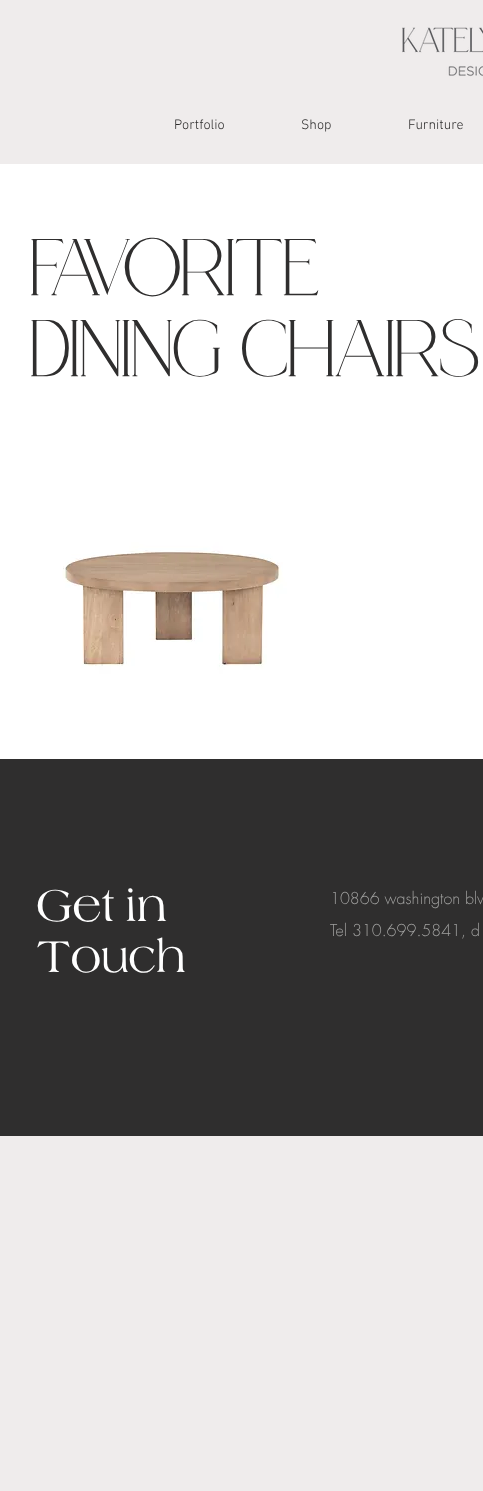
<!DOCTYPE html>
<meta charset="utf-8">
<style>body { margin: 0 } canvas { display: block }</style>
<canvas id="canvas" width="483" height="1491"></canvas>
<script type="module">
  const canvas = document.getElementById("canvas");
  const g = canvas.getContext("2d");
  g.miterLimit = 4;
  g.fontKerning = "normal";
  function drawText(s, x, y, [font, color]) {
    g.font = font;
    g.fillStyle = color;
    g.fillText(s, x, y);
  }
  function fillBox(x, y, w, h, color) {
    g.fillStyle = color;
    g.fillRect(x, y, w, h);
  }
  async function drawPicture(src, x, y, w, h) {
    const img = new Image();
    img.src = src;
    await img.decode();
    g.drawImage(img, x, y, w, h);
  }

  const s1 = ["300 14px 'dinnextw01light'", "#2F2E2E"];
  const s2 = ["80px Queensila", "#2F2E2E"];
  const s3 = ["40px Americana", "#FFFFFF"];
  const s4 = ["300 16px futura", "#A0A09F"];

  fillBox(0, 0, 483, 1491, "#EFECEC");
  await drawPicture("pic1.png", 402, 27, 81, 50);
  drawText("Portfolio", 174, 129, s1);
  drawText("Shop", 301, 129, s1);
  drawText("Furniture", 408, 129, s1);
  fillBox(0, 164, 483, 595, "#FFFFFF");
  drawText("FAVORITE", 31, 295, s2);
  drawText("DINING CHAIRS", 31, 376, s2);
  await drawPicture("pic2.png", 27, 466, 298, 268);
  fillBox(0, 759, 483, 377, "#2F2E2E");
  drawText("Get in", 37, 921, s3);
  drawText("Touch", 37, 972, s3);
  drawText("10866 washington blv", 330, 904, s4);
  drawText("Tel 310.699.5841, d", 330, 936, s4);
</script>
